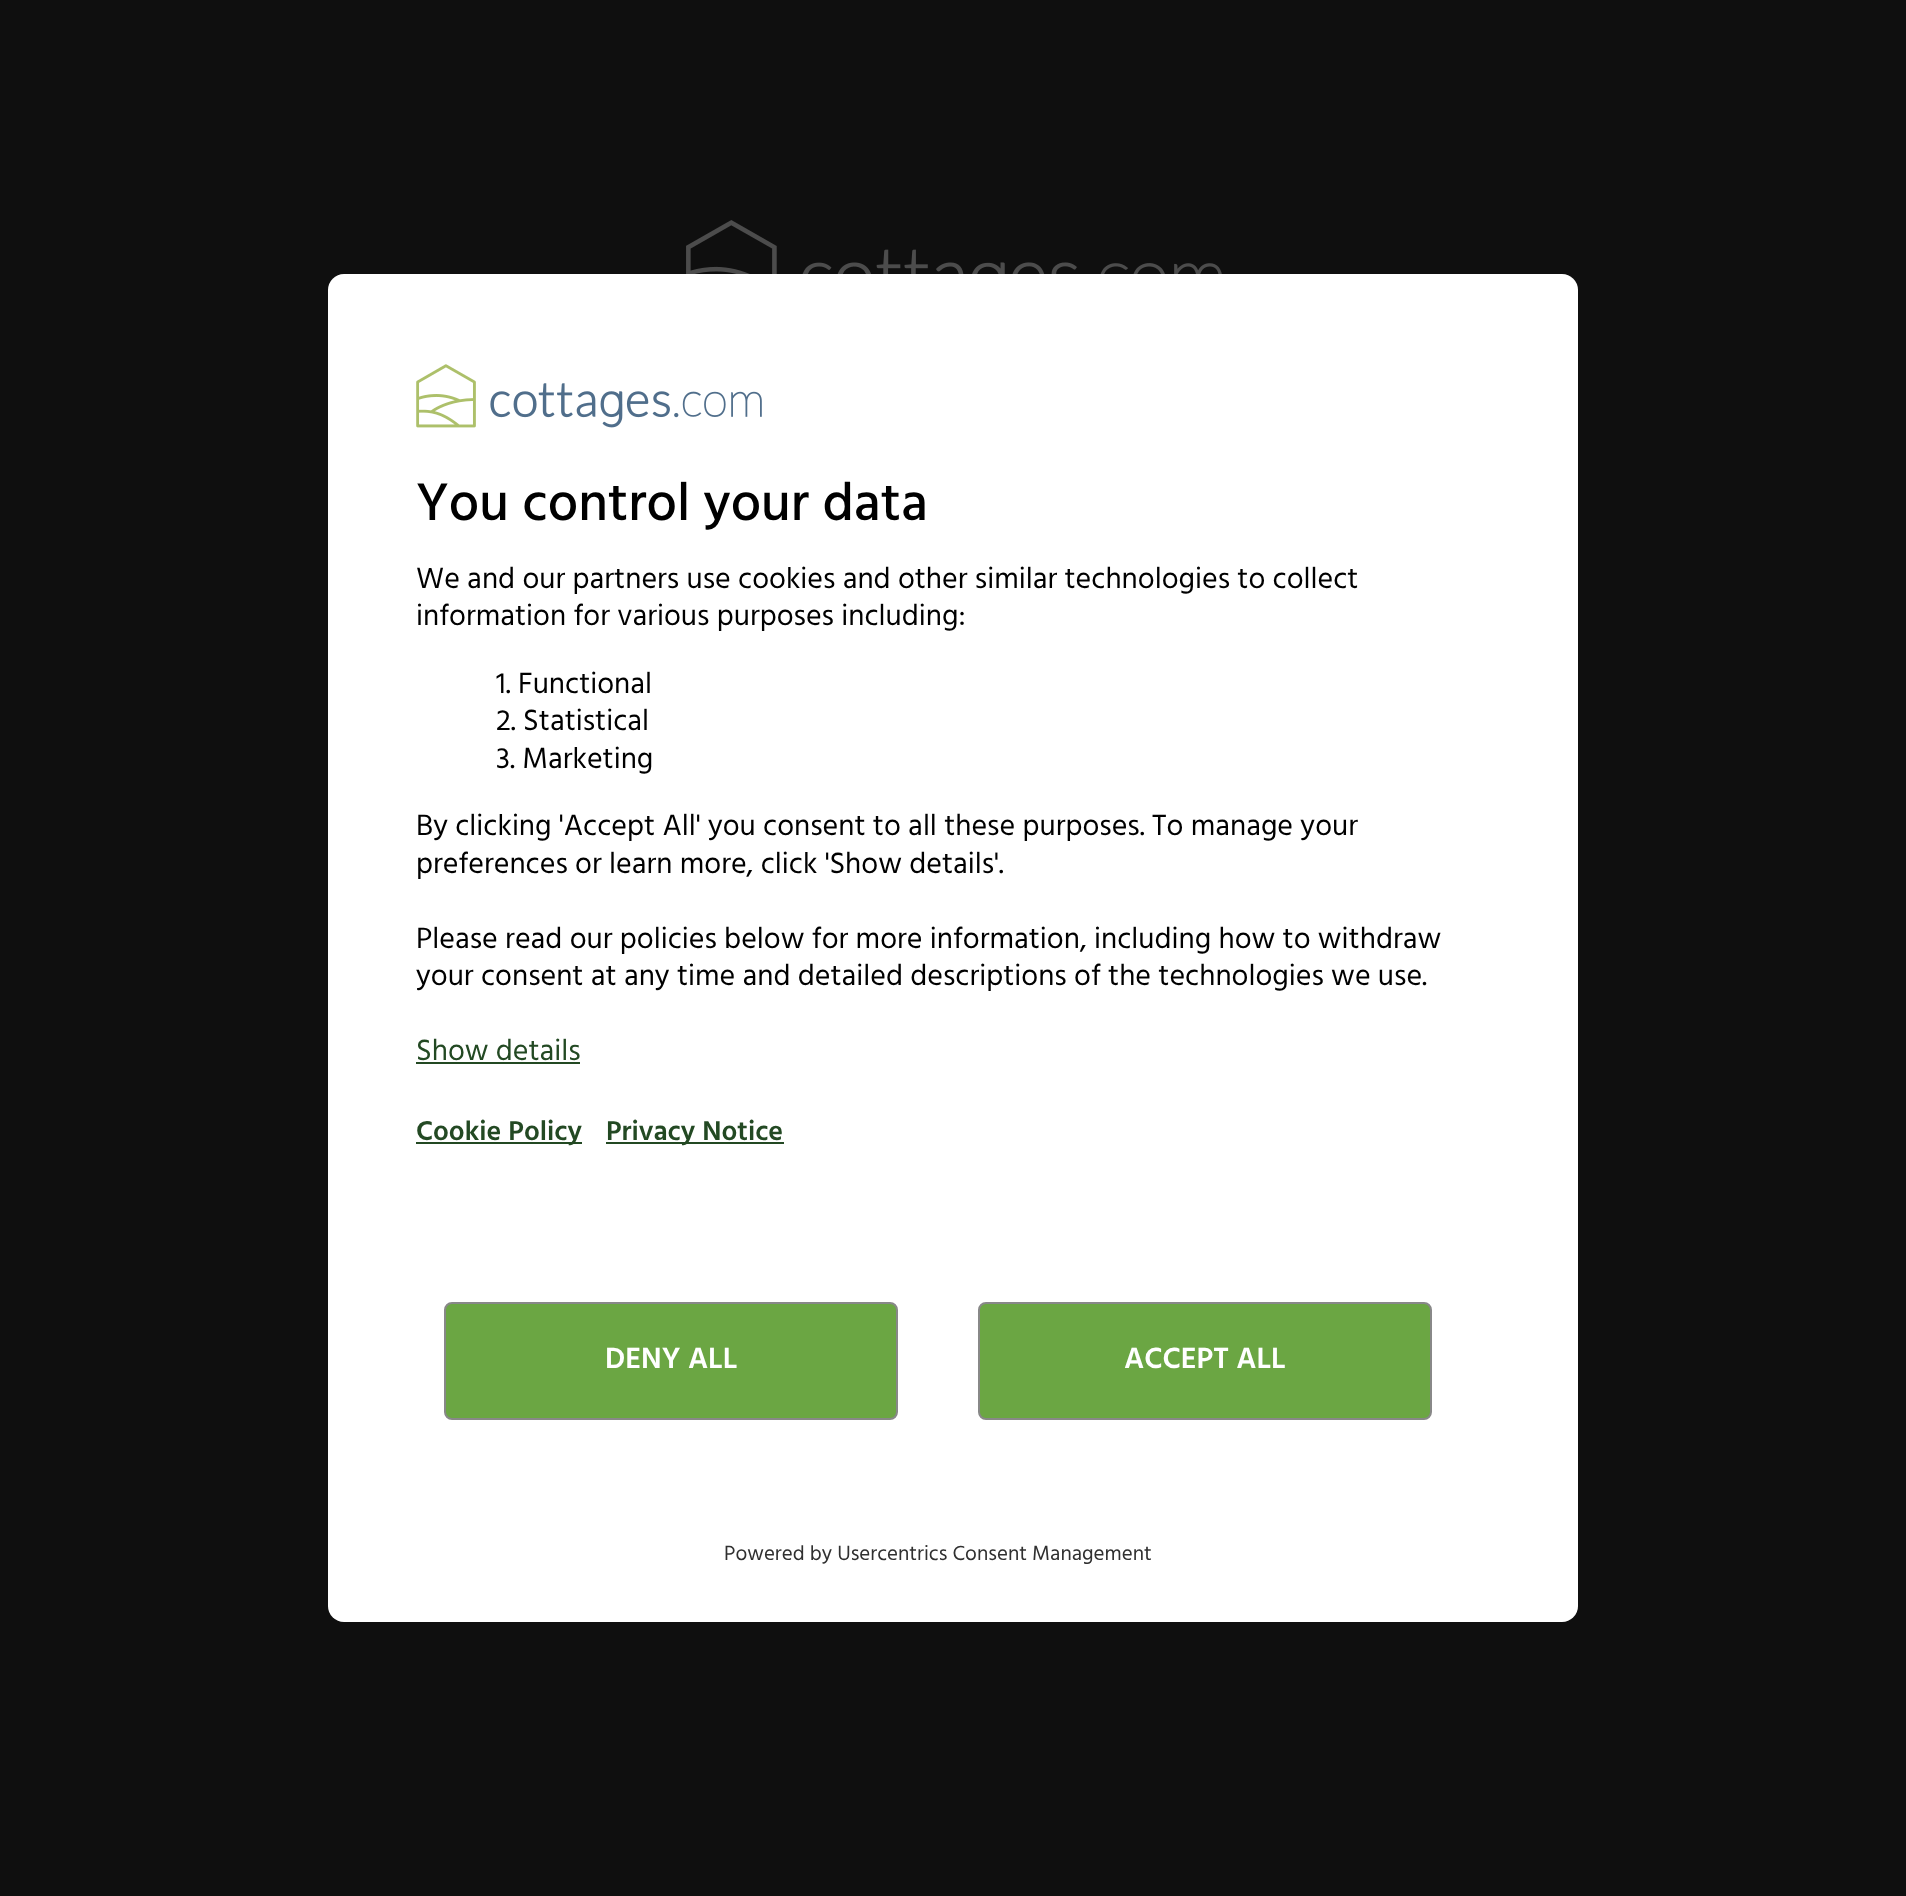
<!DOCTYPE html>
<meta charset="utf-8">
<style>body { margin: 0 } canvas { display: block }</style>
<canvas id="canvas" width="1906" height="1896"></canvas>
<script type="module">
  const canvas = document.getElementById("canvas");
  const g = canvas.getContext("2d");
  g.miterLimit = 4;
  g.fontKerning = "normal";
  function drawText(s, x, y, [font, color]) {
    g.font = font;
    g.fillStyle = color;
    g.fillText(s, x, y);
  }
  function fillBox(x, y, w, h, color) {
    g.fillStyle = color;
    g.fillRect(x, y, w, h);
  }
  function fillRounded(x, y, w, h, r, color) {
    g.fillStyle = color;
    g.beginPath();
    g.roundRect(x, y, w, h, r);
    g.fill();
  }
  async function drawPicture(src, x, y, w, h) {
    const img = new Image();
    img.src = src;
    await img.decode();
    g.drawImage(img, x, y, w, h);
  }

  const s1 = ["500 54px Hind", "#000000"];
  const s2 = ["30px Hind", "#000000"];
  const s3 = ["30px Hind", "#234923"];
  const s4 = ["600 28px Hind", "#234923"];
  const s5 = ["600 30px Hind", "#FFFFFF"];
  const s6 = ["21px Hind", "#303030"];

  fillBox(0, 0, 1906, 1896, "#0F0F0F");
  await drawPicture("pic1.png", 686, 220, 536, 54);
  fillRounded(328, 274, 1250, 1348, 16, "#FFFFFF");
  await drawPicture("pic2.png", 416, 364, 346, 64);
  drawText("You control your data", 416, 520, s1);
  drawText("We and our partners use cookies and other similar technologies to collect", 416, 588, s2);
  drawText("information for various purposes including:", 416, 625, s2);
  drawText("1. Functional", 496, 693, s2);
  drawText("2. Statistical", 496, 730, s2);
  drawText("3. Marketing", 496, 768, s2);
  drawText("By clicking 'Accept All' you consent to all these purposes. To manage your", 416, 835, s2);
  drawText("preferences or learn more, click 'Show details'.", 416, 873, s2);
  drawText("Please read our policies below for more information, including how to withdraw", 416, 948, s2);
  drawText("your consent at any time and detailed descriptions of the technologies we use.", 416, 985, s2);
  drawText("Show details", 416, 1060, s3);
  fillBox(416, 1062, 164, 2, "#234923");
  fillBox(416, 1142, 166, 2, "#234923");
  drawText("Cookie Policy", 416, 1140, s4);
  fillBox(606, 1142, 178, 2, "#234923");
  drawText("Privacy Notice", 606, 1140, s4);
  g.fillStyle = "#6BA643";
  g.beginPath();
  g.roundRect(445, 1303, 452, 116, 7);
  g.fill();
  g.strokeStyle = "#888888";
  g.lineWidth = 2;
  g.stroke();
  drawText("DENY ALL", 605, 1368, s5);
  g.fillStyle = "#6BA643";
  g.beginPath();
  g.roundRect(979, 1303, 452, 116, 7);
  g.fill();
  g.stroke();
  drawText("ACCEPT ALL", 1124, 1368, s5);
  drawText("Powered by Usercentrics Consent Management", 724, 1560, s6);
</script>
